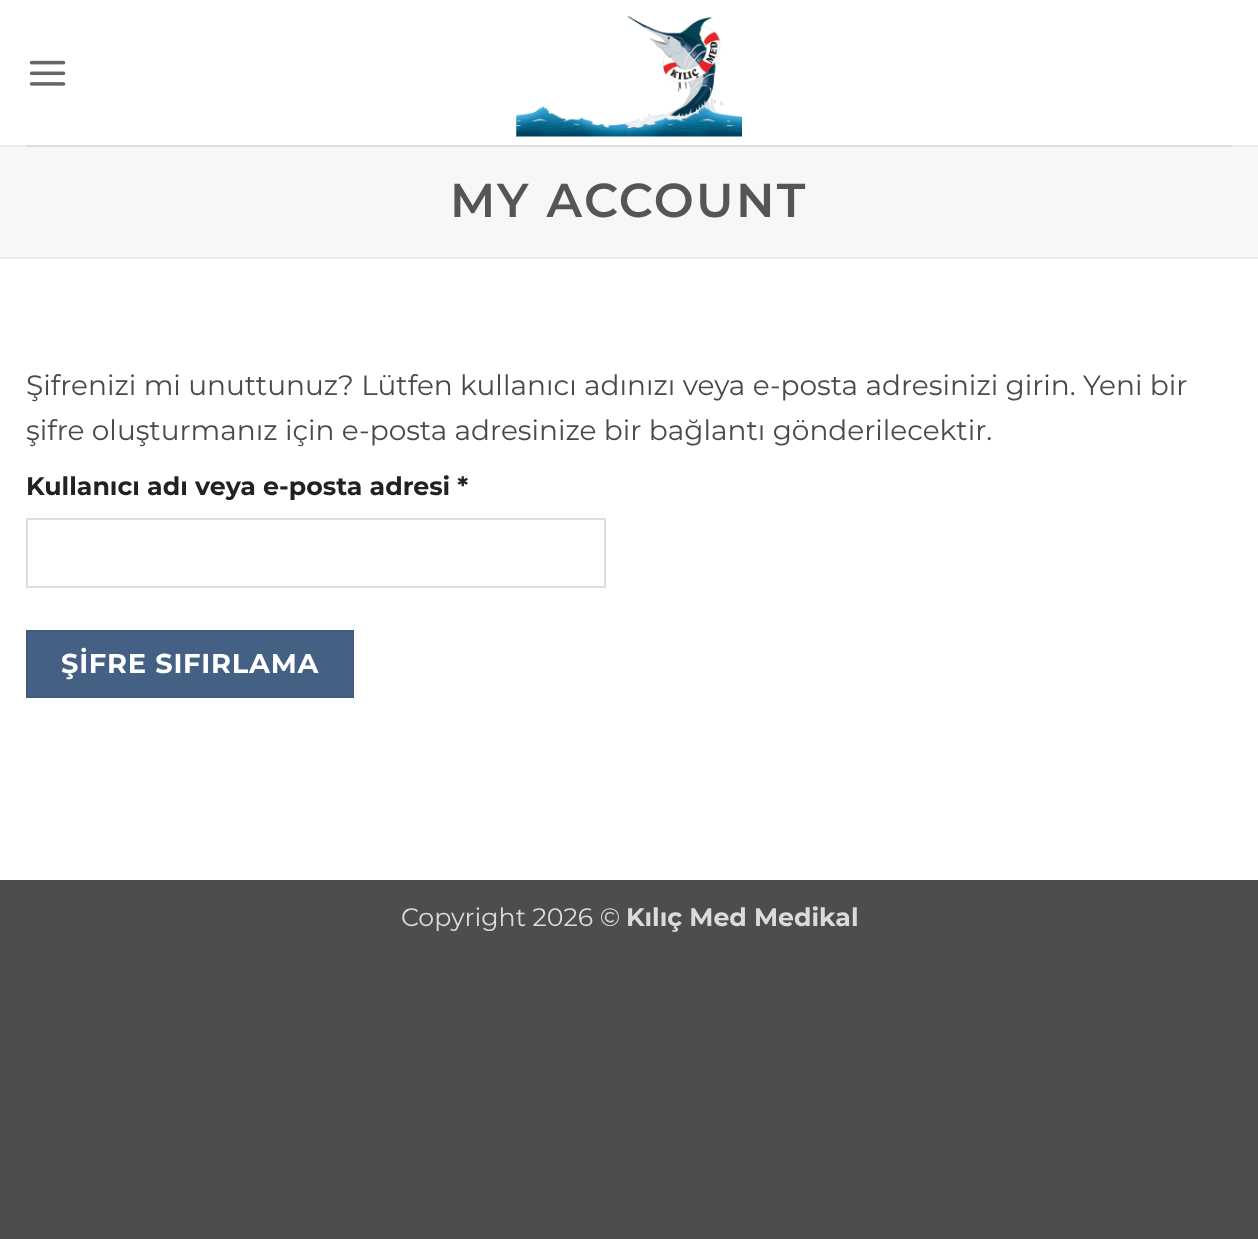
<!DOCTYPE html>
<meta charset="utf-8">
<style>body { margin: 0 } canvas { display: block }</style>
<canvas id="canvas" width="1258" height="1239"></canvas>
<script type="module">
  const canvas = document.getElementById("canvas");
  const g = canvas.getContext("2d");
  g.miterLimit = 4;
  g.fontKerning = "normal";
  function drawText(s, x, y, [font, color]) {
    g.font = font;
    g.fillStyle = color;
    g.fillText(s, x, y);
  }
  function fillBox(x, y, w, h, color) {
    g.fillStyle = color;
    g.fillRect(x, y, w, h);
  }
  async function drawPicture(src, x, y, w, h) {
    const img = new Image();
    img.src = src;
    await img.decode();
    g.drawImage(img, x, y, w, h);
  }

  const s1 = ["600 47.5px Montserrat", "#555555"];
  const s2 = ["28px Montserrat", "#4A4A4A"];
  const s3 = ["bold 25.25px Montserrat", "#222222"];
  const s4 = ["bold 27.25px Montserrat", "#FFFFFF"];
  const s5 = ["25.25px Montserrat", "#DBDBDB"];
  const s6 = ["bold 25.25px Montserrat", "#DBDBDB"];

  fillBox(0, 0, 1258, 1239, "#4D4D4D");
  fillBox(0, 0, 1258, 880, "#FFFFFF");
  await drawPicture("pic1.png", 29, 60, 37, 26);
  await drawPicture("pic2.png", 516, 16, 226, 121);
  fillBox(0, 145, 1258, 2, "#ECECEC");
  fillBox(26, 145, 1206, 2, "#DCDCDC");
  fillBox(0, 147, 1258, 110, "#F7F7F7");
  fillBox(0, 257, 1258, 2, "#ECECEC");
  g.letterSpacing = "2.4px";
  drawText("MY ACCOUNT", 450, 217, s1);
  g.letterSpacing = "0px";
  drawText("Şifrenizi mi unuttunuz? Lütfen kullanıcı adınızı veya e-posta adresinizi girin. Yeni bir", 26, 395, s2);
  drawText("şifre oluşturmanız için e-posta adresinize bir bağlantı gönderilecektir.", 26, 440, s2);
  drawText("Kullanıcı adı veya e-posta adresi *", 26, 495, s3);
  g.strokeStyle = "#DDDDDD";
  g.lineWidth = 2;
  g.strokeRect(27, 519, 578, 68);
  g.fillStyle = "#446084";
  g.beginPath();
  g.rect(27, 631, 326, 66);
  g.fill();
  g.strokeStyle = "#415B7D";
  g.stroke();
  g.letterSpacing = "0.75px";
  drawText("ŞİFRE SIFIRLAMA", 61, 673, s4);
  g.letterSpacing = "0px";
  drawText("Copyright 2026 ©", 401, 926, s5);
  drawText("Kılıç Med Medikal", 626, 926, s6);
</script>
